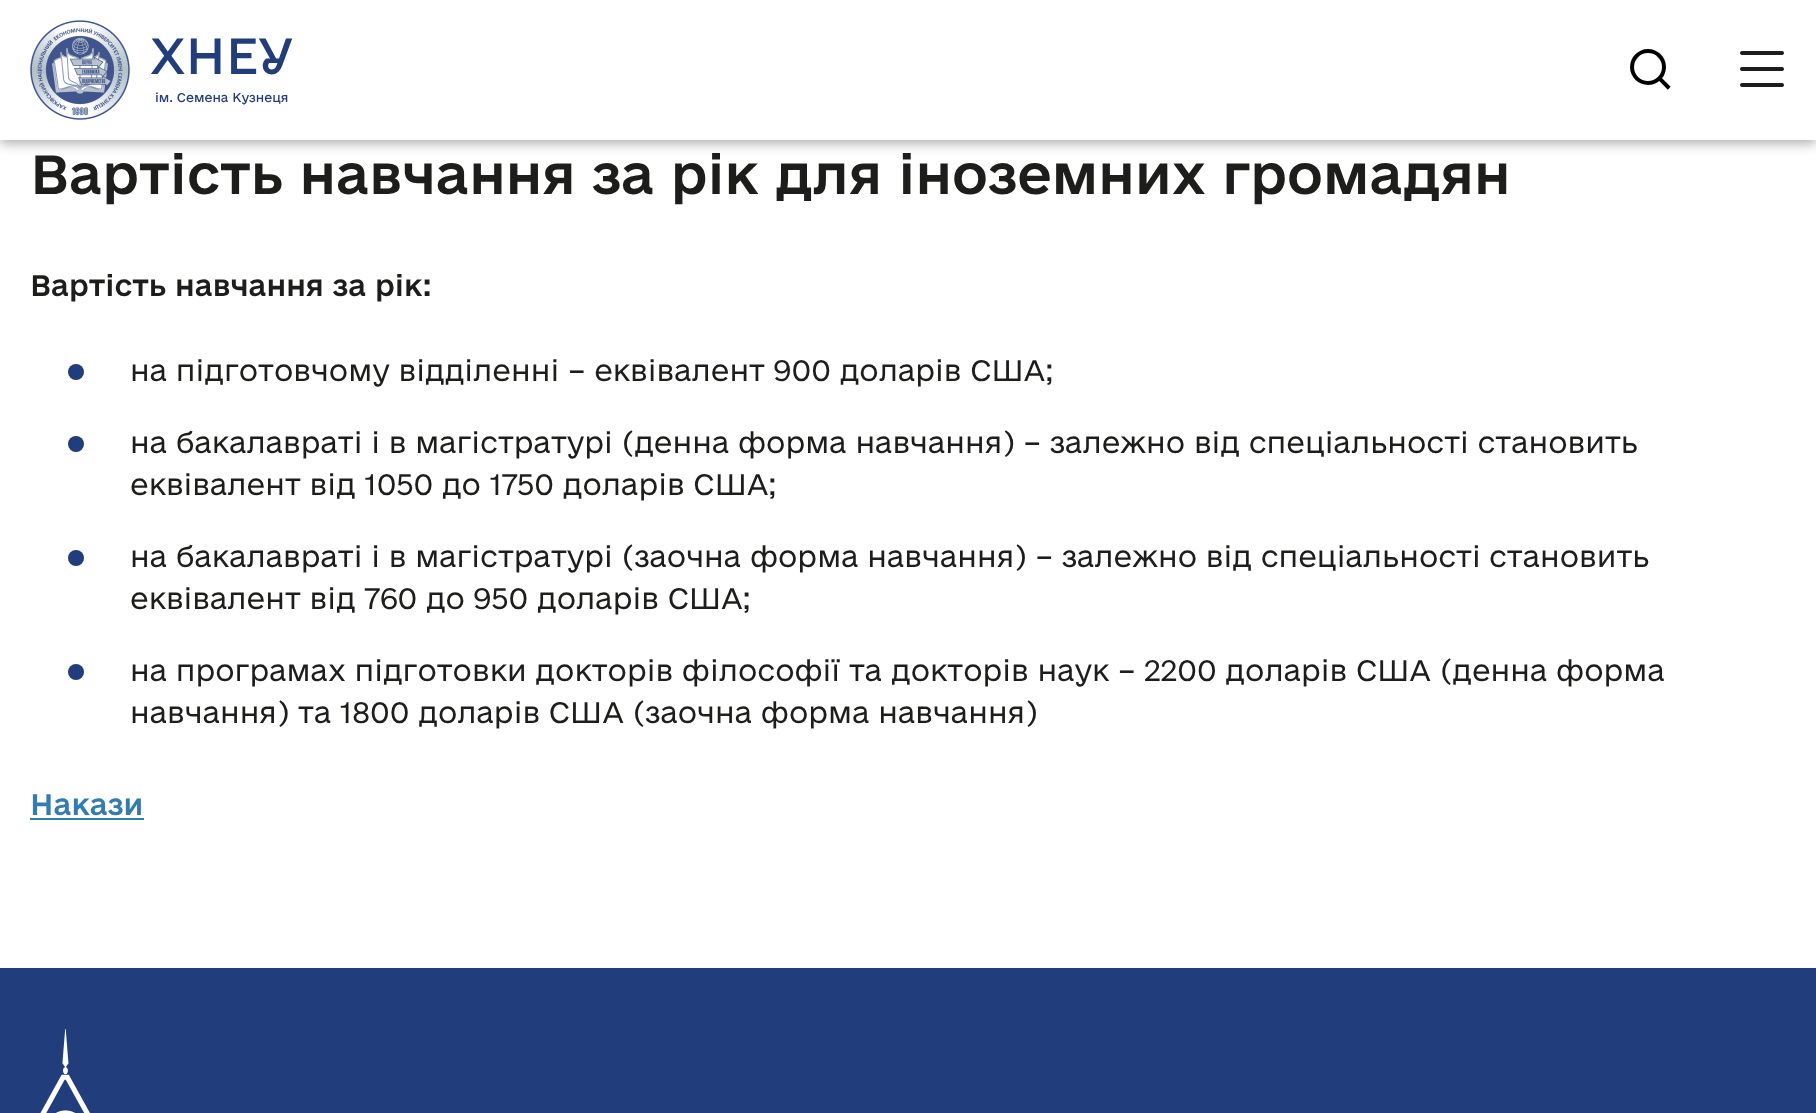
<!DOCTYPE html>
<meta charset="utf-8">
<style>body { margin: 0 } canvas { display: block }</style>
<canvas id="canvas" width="1816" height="1113"></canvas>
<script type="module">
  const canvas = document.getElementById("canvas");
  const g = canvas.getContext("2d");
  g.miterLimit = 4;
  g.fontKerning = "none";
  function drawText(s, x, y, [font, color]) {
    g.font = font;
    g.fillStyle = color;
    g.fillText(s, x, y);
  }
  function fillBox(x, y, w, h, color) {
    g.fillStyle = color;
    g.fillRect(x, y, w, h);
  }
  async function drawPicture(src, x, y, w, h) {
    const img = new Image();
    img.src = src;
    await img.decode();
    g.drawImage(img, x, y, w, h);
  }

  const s1 = ["48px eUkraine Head", "#213D7C"];
  const s2 = ["12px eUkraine", "#213D7C"];
  const s3 = ["48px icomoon", "#000000"];
  const s4 = ["500 52px eUkraine", "#1D1D1B"];
  const s5 = ["500 28px eUkraine", "#1D1D1B"];
  const s6 = ["300 28px eUkraine", "#1D1D1B"];
  const s7 = ["500 28px eUkraine", "#347CAD"];

  fillBox(0, 0, 1816, 1113, "#FFFFFF");
  g.fillStyle = "rgba(0, 0, 0, 0.3)";
  g.filter = "blur(6px)";
  g.beginPath();
  g.rect(0, 4, 1816, 140);
  g.fill();
  g.filter = "none";
  fillBox(0, 0, 1816, 140, "#FFFFFF");
  await drawPicture("pic1.png", 30, 20, 100, 100);
  drawText("ХНЕУ", 150, 74, s1);
  drawText("ім. Семена Кузнеця", 155, 102, s2);
  drawText("💔", 1630, 90, s3);
  await drawPicture("pic2.png", 1740, 51, 44, 36);
  drawText("Вартість навчання за рік для іноземних громадян", 30, 194, s4);
  drawText("Вартість навчання за рік:", 30, 296, s5);
  g.fillStyle = "#213D7C";
  g.beginPath();
  g.arc(76, 372, 8, 0, Math.PI * 2);
  g.fill();
  drawText("на підготовчому відділенні – еквівалент 900 доларів США;", 130, 381, s6);
  g.fillStyle = "#213D7C";
  g.beginPath();
  g.arc(76, 444, 8, 0, Math.PI * 2);
  g.fill();
  drawText("на бакалавраті і в магістратурі (денна форма навчання) – залежно від спеціальності становить", 130, 453, s6);
  drawText("еквівалент від 1050 до 1750 доларів США;", 130, 495, s6);
  g.fillStyle = "#213D7C";
  g.beginPath();
  g.arc(76, 558, 8, 0, Math.PI * 2);
  g.fill();
  drawText("на бакалавраті і в магістратурі (заочна форма навчання) – залежно від спеціальності", 130, 567, s6);
  drawText("становить", 1489, 567, s6);
  drawText("еквівалент від 760 до 950 доларів США;", 130, 609, s6);
  g.fillStyle = "#213D7C";
  g.beginPath();
  g.arc(76, 672, 8, 0, Math.PI * 2);
  g.fill();
  drawText("на програмах підготовки докторів філософії", 130, 681, s6);
  drawText("та докторів наук – 2200 доларів США (денна форма", 849, 681, s6);
  drawText("навчання) та 1800 доларів США (заочна форма навчання)", 130, 723, s6);
  drawText("Накази", 30, 815, s7);
  fillBox(30, 818, 114, 2, "#347CAD");
  fillBox(0, 968, 1816, 145, "#213D7C");
  await drawPicture("pic3.png", 40, 1029, 50, 84);
</script>
